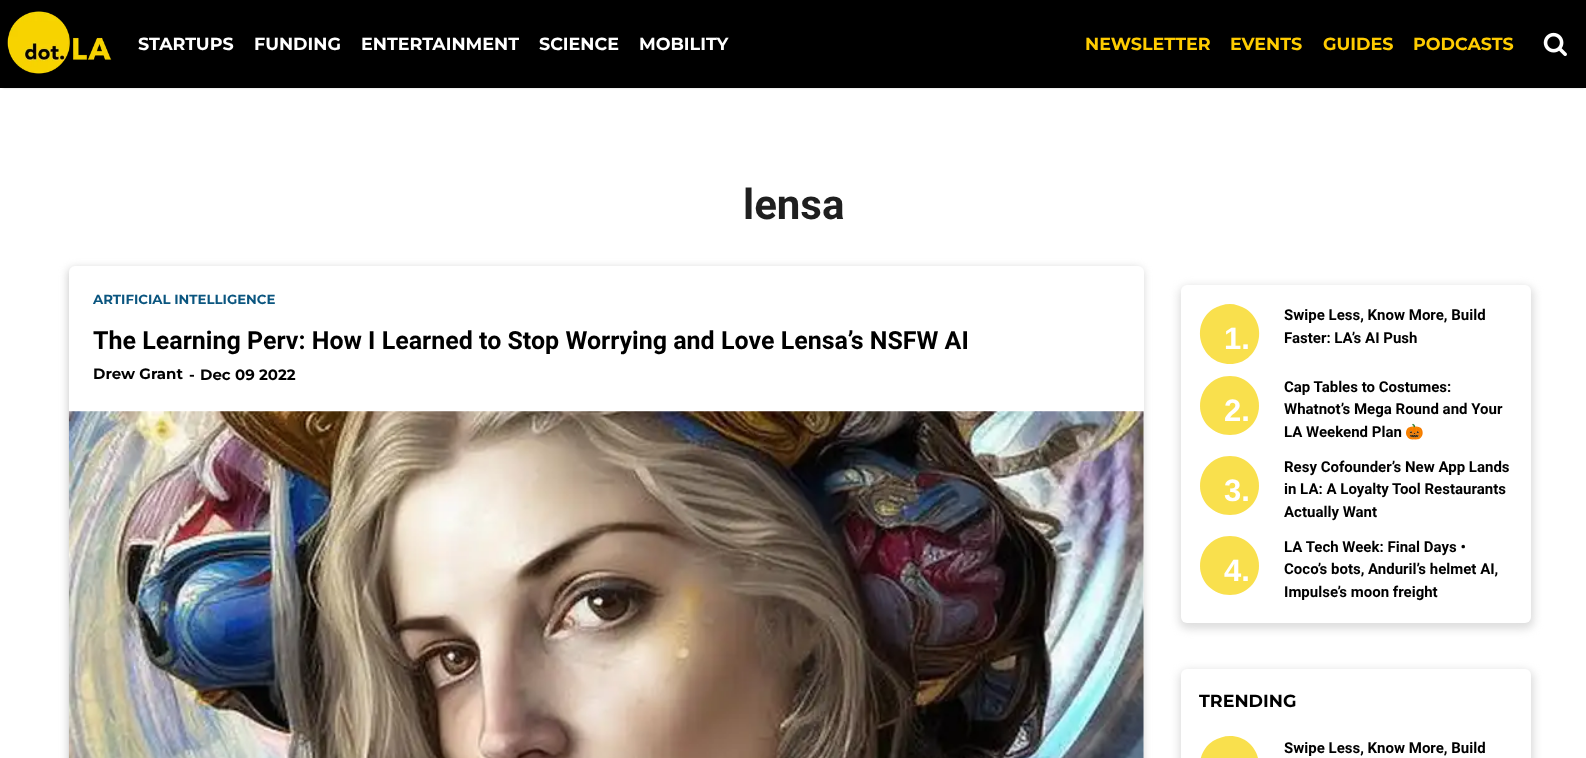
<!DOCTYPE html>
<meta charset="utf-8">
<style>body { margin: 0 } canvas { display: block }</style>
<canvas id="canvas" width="1586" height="758"></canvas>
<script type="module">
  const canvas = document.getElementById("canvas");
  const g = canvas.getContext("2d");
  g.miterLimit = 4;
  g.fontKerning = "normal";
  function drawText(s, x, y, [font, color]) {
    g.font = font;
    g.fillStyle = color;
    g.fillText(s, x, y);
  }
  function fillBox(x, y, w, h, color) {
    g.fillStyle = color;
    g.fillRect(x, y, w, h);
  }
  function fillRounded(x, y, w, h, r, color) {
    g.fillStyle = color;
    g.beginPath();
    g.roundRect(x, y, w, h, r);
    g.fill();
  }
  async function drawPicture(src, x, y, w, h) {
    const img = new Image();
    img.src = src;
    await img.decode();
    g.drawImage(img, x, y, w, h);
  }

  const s1 = ["bold 17.5px Montserrat", "#FFFFFF"];
  const s2 = ["bold 17.5px Montserrat", "#FFCC00"];
  const s3 = ["bold 42px Roboto", "#1F1F1F"];
  const s4 = ["bold 13.3px Montserrat", "#0A557F"];
  const s5 = ["bold 25px Roboto", "#000000"];
  const s6 = ["bold 15px Montserrat", "#000000"];
  const s7 = ["bold 31px Liberation Sans", "#FFFFFF"];
  const s8 = ["bold 15px Roboto", "#000000"];
  const s9 = ["bold 15px Noto Color Emoji", "#000000"];
  const s10 = ["bold 17.5px Montserrat", "#000000"];

  fillBox(0, 0, 1586, 758, "#FFFFFF");
  g.fillStyle = "rgba(0, 0, 0, 0.2)";
  g.filter = "blur(1px)";
  g.beginPath();
  g.rect(3, 5, 1581, 83);
  g.fill();
  g.filter = "none";
  fillBox(0, 0, 1586, 88, "#000000");
  await drawPicture("pic1.png", 7, 11, 105, 63);
  drawText("STARTUPS", 138, 50, s1);
  drawText("FUNDING", 254, 50, s1);
  drawText("ENTERTAINMENT", 361, 50, s1);
  drawText("SCIENCE", 539, 50, s1);
  drawText("MOBILITY", 639, 50, s1);
  drawText("NEWSLETTER", 1085, 50, s2);
  drawText("EVENTS", 1230, 50, s2);
  drawText("GUIDES", 1323, 50, s2);
  drawText("PODCASTS", 1413, 50, s2);
  await drawPicture("pic2.png", 1543, 32, 24, 25);
  drawText("lensa", 743, 219, s3);
  g.fillStyle = "#CCCCCC";
  g.filter = "blur(4px)";
  g.beginPath();
  g.roundRect(68, 268, 1075, 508, 6);
  g.fill();
  g.filter = "none";
  fillRounded(69, 266, 1075, 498, 6, "#FFFFFF");
  drawText("ARTIFICIAL INTELLIGENCE", 93, 304, s4);
  drawText("The Learning Perv: How I Learned to Stop Worrying and Love Lensa’s NSFW AI", 93, 349, s5);
  drawText("Drew Grant", 93, 379, s6);
  drawText("-", 189, 380, s6);
  drawText("Dec 09 2022", 200, 380, s6);
  await drawPicture("pic3.png", 68, 411, 1076, 347);
  g.fillStyle = "#DDDDDD";
  g.filter = "blur(4px)";
  g.beginPath();
  g.roundRect(1179, 286, 355, 343, 9);
  g.fill();
  g.filter = "none";
  fillRounded(1181, 285, 350, 338, 6, "#FFFFFF");
  g.fillStyle = "#F9E04D";
  g.beginPath();
  g.moveTo(1230, 304);
  g.bezierCurveTo(1224, 304, 1218, 306, 1213, 309);
  g.bezierCurveTo(1189, 325, 1200, 364, 1230, 364);
  g.bezierCurveTo(1259, 364, 1270, 325, 1246, 309);
  g.bezierCurveTo(1241, 306, 1235, 304, 1230, 304);
  g.closePath();
  g.fill();
  drawText("1.", 1224, 349, s7);
  drawText("Swipe Less, Know More, Build", 1284, 320, s8);
  drawText("Faster: LA’s AI Push", 1284, 343, s8);
  g.fillStyle = "#F9E04D";
  g.beginPath();
  g.moveTo(1230, 376);
  g.bezierCurveTo(1213, 376, 1200, 389, 1200, 406);
  g.bezierCurveTo(1200, 422, 1213, 435, 1230, 435);
  g.bezierCurveTo(1246, 435, 1259, 422, 1259, 406);
  g.bezierCurveTo(1259, 389, 1246, 376, 1230, 376);
  g.closePath();
  g.fill();
  drawText("2.", 1224, 421, s7);
  drawText("Cap Tables to Costumes:", 1284, 392, s8);
  drawText("Whatnot’s Mega Round and Your", 1284, 414, s8);
  drawText("LA Weekend Plan", 1284, 437, s8);
  drawText("🎃", 1405, 437, s9);
  g.fillStyle = "#F9E04D";
  g.beginPath();
  g.moveTo(1230, 456);
  g.bezierCurveTo(1213, 456, 1200, 469, 1200, 486);
  g.bezierCurveTo(1200, 502, 1213, 515, 1230, 515);
  g.bezierCurveTo(1246, 515, 1259, 502, 1259, 486);
  g.bezierCurveTo(1259, 469, 1246, 456, 1230, 456);
  g.closePath();
  g.fill();
  drawText("3.", 1224, 501, s7);
  drawText("Resy Cofounder’s New App Lands", 1284, 472, s8);
  drawText("in LA: A Loyalty Tool Restaurants", 1284, 494, s8);
  drawText("Actually Want", 1284, 517, s8);
  g.fillStyle = "#F9E04D";
  g.beginPath();
  g.moveTo(1230, 536);
  g.bezierCurveTo(1213, 536, 1200, 549, 1200, 566);
  g.bezierCurveTo(1200, 582, 1213, 595, 1230, 595);
  g.bezierCurveTo(1246, 595, 1259, 582, 1259, 566);
  g.bezierCurveTo(1259, 549, 1246, 536, 1230, 536);
  g.closePath();
  g.fill();
  drawText("4.", 1224, 581, s7);
  drawText("LA Tech Week: Final Days •", 1284, 552, s8);
  drawText("Coco’s bots, Anduril’s helmet AI,", 1284, 574, s8);
  drawText("Impulse’s moon freight", 1284, 597, s8);
  g.fillStyle = "#DDDDDD";
  g.filter = "blur(4px)";
  g.beginPath();
  g.roundRect(1179, 670, 355, 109, 9);
  g.fill();
  g.filter = "none";
  fillRounded(1181, 669, 350, 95, 6, "#FFFFFF");
  drawText("TRENDING", 1199, 707, s10);
  g.fillStyle = "#F9E04D";
  g.beginPath();
  g.moveTo(1230, 736);
  g.bezierCurveTo(1224, 736, 1218, 738, 1213, 741);
  g.bezierCurveTo(1189, 757, 1200, 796, 1230, 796);
  g.bezierCurveTo(1235, 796, 1241, 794, 1246, 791);
  g.bezierCurveTo(1270, 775, 1259, 736, 1230, 736);
  g.closePath();
  g.fill();
  drawText("Swipe Less, Know More, Build", 1284, 753, s8);
</script>
